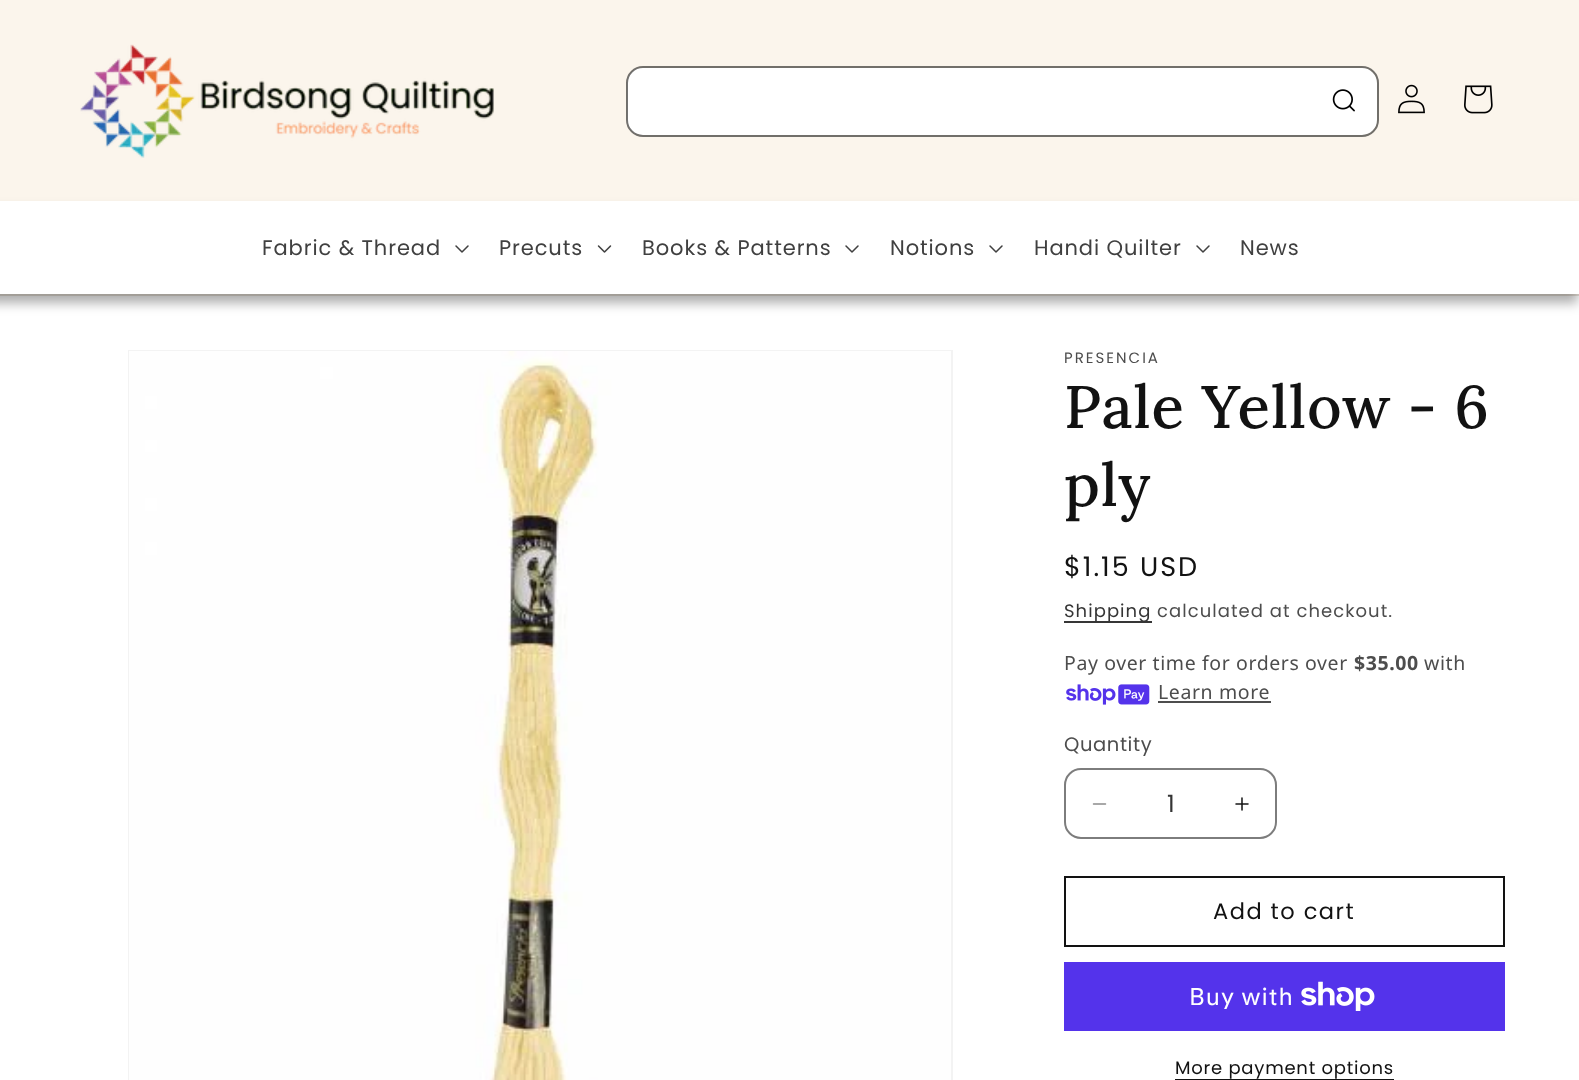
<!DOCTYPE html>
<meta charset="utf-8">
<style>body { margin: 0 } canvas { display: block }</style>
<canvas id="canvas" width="1579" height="1080"></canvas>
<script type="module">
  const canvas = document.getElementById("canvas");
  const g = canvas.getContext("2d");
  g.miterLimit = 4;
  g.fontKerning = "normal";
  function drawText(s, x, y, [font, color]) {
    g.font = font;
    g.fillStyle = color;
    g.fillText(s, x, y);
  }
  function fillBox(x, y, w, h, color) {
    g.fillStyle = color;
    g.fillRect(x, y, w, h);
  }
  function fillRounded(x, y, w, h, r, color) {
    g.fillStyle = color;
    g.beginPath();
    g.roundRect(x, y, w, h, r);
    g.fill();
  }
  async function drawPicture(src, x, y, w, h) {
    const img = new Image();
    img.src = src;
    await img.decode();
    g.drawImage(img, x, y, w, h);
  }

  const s1 = ["21px Poppins", "#404040"];
  const s2 = ["15px Poppins", "#4D4D4D"];
  const s3 = ["500 60px Lora", "#121212"];
  const s4 = ["27px Poppins", "#121212"];
  const s5 = ["18px Poppins", "#353535"];
  const s6 = ["18px Poppins", "#4D4D4D"];
  const s7 = ["19.5px Noto Sans", "#4D4D4D"];
  const s8 = ["bold 19.5px Noto Sans", "#4D4D4D"];
  const s9 = ["19.5px Poppins", "#4D4D4D"];
  const s10 = ["24px Poppins", "#353535"];
  const s11 = ["22.5px Poppins", "#121212"];
  const s12 = ["24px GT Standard", "#FFFFFF"];
  const s13 = ["18px Poppins", "#121212"];

  fillBox(0, 0, 1579, 1080, "#FFFFFF");
  fillBox(0, 0, 1579, 201, "#FBF5EC");
  fillBox(0, 294, 1579, 2, "#E7E1D9");
  await drawPicture("pic1.png", 80, 44, 414, 114);
  fillRounded(627, 68, 750, 67, 15, "#FFFFFF");
  await drawPicture("pic2.png", 1332, 89, 23, 23);
  g.beginPath();
  g.roundRect(627, 67, 751, 69, 16);
  g.strokeStyle = "rgba(0, 0, 0, 0.55)";
  g.lineWidth = 2;
  g.stroke();
  await drawPicture("pic3.png", 1398, 84, 27, 30);
  await drawPicture("pic4.png", 1464, 85, 29, 29);
  g.fillStyle = "rgba(0, 0, 0, 0.32)";
  g.filter = "blur(6px)";
  g.beginPath();
  g.rect(-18, 210, 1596, 93);
  g.fill();
  g.filter = "none";
  fillBox(0, 201, 1579, 93, "#FFFFFF");
  g.letterSpacing = "0.9px";
  drawText("Fabric & Thread", 262, 255, s1);
  await drawPicture("pic5.png", 455, 245, 14, 8);
  drawText("Precuts", 499, 255, s1);
  await drawPicture("pic6.png", 597, 245, 15, 8);
  drawText("Books & Patterns", 642, 255, s1);
  await drawPicture("pic5.png", 845, 245, 14, 8);
  drawText("Notions", 890, 255, s1);
  await drawPicture("pic5.png", 989, 245, 14, 8);
  drawText("Handi Quilter", 1034, 255, s1);
  await drawPicture("pic5.png", 1196, 245, 14, 8);
  drawText("News", 1240, 255, s1);
  g.strokeStyle = "#F3F3F3";
  g.strokeRect(129, 351, 823, 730);
  await drawPicture("pic7.png", 129, 351, 822, 729);
  g.letterSpacing = "2px";
  drawText("PRESENCIA", 1064, 363, s2);
  g.letterSpacing = "0.9px";
  drawText("Pale Yellow - 6", 1064, 428, s3);
  drawText("ply", 1064, 506, s3);
  g.letterSpacing = "2px";
  drawText("$1.15 USD", 1064, 576, s4);
  fillBox(1064, 621, 88, 2, "#363636");
  g.letterSpacing = "1.05px";
  drawText("Shipping", 1064, 617, s5);
  drawText("calculated at checkout.", 1157, 617, s6);
  g.letterSpacing = "0.6px";
  drawText("Pay over time for orders over", 1064, 670, s7);
  drawText("$35.00", 1354, 670, s8);
  drawText("with", 1424, 670, s7);
  await drawPicture("pic8.png", 1066, 684, 84, 21);
  drawText("Learn more", 1158, 699, s7);
  fillBox(1158, 701, 113, 2, "#4D4D4D");
  drawText("Quantity", 1064, 751, s9);
  await drawPicture("pic9.png", 1092, 803, 15, 2);
  await drawPicture("pic10.png", 1235, 797, 14, 14);
  g.beginPath();
  g.roundRect(1065, 769, 211, 69, 16);
  g.strokeStyle = "#7D7D7D";
  g.stroke();
  g.letterSpacing = "0px";
  drawText("1", 1167, 812, s10);
  g.strokeStyle = "#121212";
  g.strokeRect(1065, 877, 439, 69);
  g.letterSpacing = "1.5px";
  drawText("Add to cart", 1213, 919, s11);
  fillBox(1064, 962, 441, 69, "#5433EB");
  g.letterSpacing = "0.9px";
  drawText("Buy with", 1189, 1005, s12);
  await drawPicture("pic11.png", 1301, 981, 74, 30);
  g.letterSpacing = "0.75px";
  drawText("More payment options", 1175, 1074, s13);
  fillBox(1175, 1079, 219, 1, "#121212");
</script>
